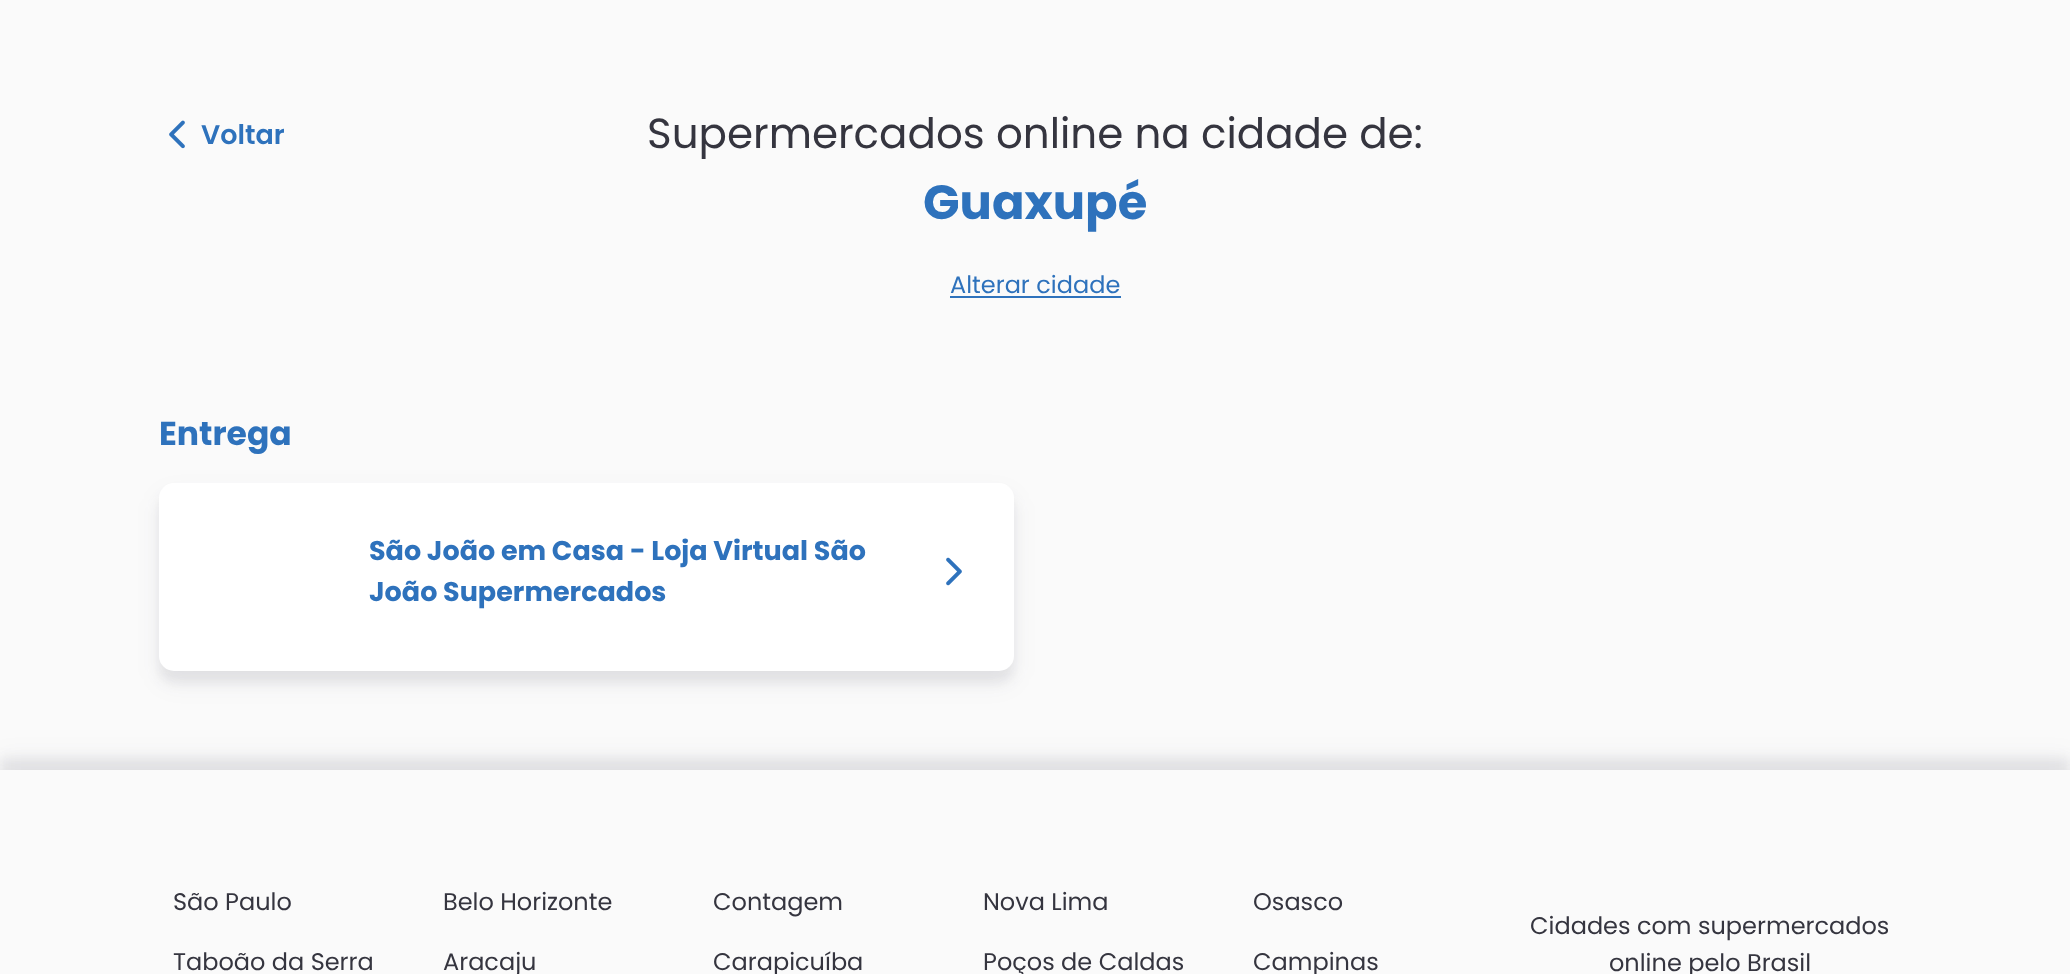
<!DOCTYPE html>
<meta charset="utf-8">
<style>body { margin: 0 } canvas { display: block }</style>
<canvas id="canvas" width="2070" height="974"></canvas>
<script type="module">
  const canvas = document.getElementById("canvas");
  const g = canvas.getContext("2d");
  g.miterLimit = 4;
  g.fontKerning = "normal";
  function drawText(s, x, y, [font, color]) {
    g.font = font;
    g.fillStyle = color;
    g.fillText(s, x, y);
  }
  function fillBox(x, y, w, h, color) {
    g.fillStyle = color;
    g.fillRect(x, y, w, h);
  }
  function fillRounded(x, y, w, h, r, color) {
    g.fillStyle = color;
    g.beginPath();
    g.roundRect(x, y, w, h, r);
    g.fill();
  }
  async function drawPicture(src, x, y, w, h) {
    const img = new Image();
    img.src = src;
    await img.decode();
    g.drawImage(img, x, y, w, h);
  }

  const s1 = ["600 27px Poppins", "#2E72BC"];
  const s2 = ["42px Poppins", "#35353F"];
  const s3 = ["bold 48px Poppins", "#2E72BC"];
  const s4 = ["24px Poppins", "#2E72BC"];
  const s5 = ["bold 33px Poppins", "#2E72BC"];
  const s6 = ["bold 27px Poppins", "#2E72BC"];
  const s7 = ["24px Poppins", "#35353F"];

  fillBox(0, 0, 2070, 974, "#FAFAFA");
  await drawPicture("pic1.png", 169, 120, 16, 29);
  drawText("Voltar", 201, 144, s1);
  drawText("Supermercados online na cidade de:", 647, 148, s2);
  drawText("Guaxupé", 923, 219, s3);
  drawText("Alterar cidade", 950, 293, s4);
  fillBox(950, 296, 171, 2, "#2E72BC");
  drawText("Entrega", 159, 445, s5);
  g.fillStyle = "rgba(50, 50, 71, 0.06)";
  g.filter = "blur(12px)";
  g.beginPath();
  g.roundRect(159, 495, 855, 188, 15);
  g.fill();
  g.filter = "none";
  g.fillStyle = "rgba(50, 50, 71, 0.08)";
  g.filter = "blur(6px)";
  g.beginPath();
  g.roundRect(159, 495, 855, 188, 15);
  g.fill();
  g.filter = "none";
  fillRounded(159, 483, 855, 188, 15, "#FFFFFF");
  drawText("São João em Casa - Loja Virtual São", 369, 560, s6);
  drawText("João Supermercados", 369, 601, s6);
  await drawPicture("pic2.png", 946, 557, 16, 29);
  g.fillStyle = "rgba(50, 50, 71, 0.06)";
  g.filter = "blur(12px)";
  g.beginPath();
  g.rect(0, 758, 2070, 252);
  g.fill();
  g.filter = "none";
  g.fillStyle = "rgba(50, 50, 71, 0.08)";
  g.filter = "blur(6px)";
  g.beginPath();
  g.rect(0, 758, 2070, 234);
  g.fill();
  g.filter = "none";
  fillBox(0, 770, 2070, 204, "#FAFAFA");
  drawText("São Paulo", 173, 910, s7);
  drawText("Belo Horizonte", 443, 910, s7);
  drawText("Contagem", 713, 910, s7);
  drawText("Nova Lima", 983, 910, s7);
  drawText("Osasco", 1253, 910, s7);
  drawText("Taboão da Serra", 173, 970, s7);
  drawText("Aracaju", 443, 970, s7);
  drawText("Carapicuíba", 713, 970, s7);
  drawText("Poços de Caldas", 983, 970, s7);
  drawText("Campinas", 1253, 970, s7);
  drawText("Cidades com supermercados", 1530, 934, s7);
  drawText("online pelo Brasil", 1609, 971, s7);
</script>
